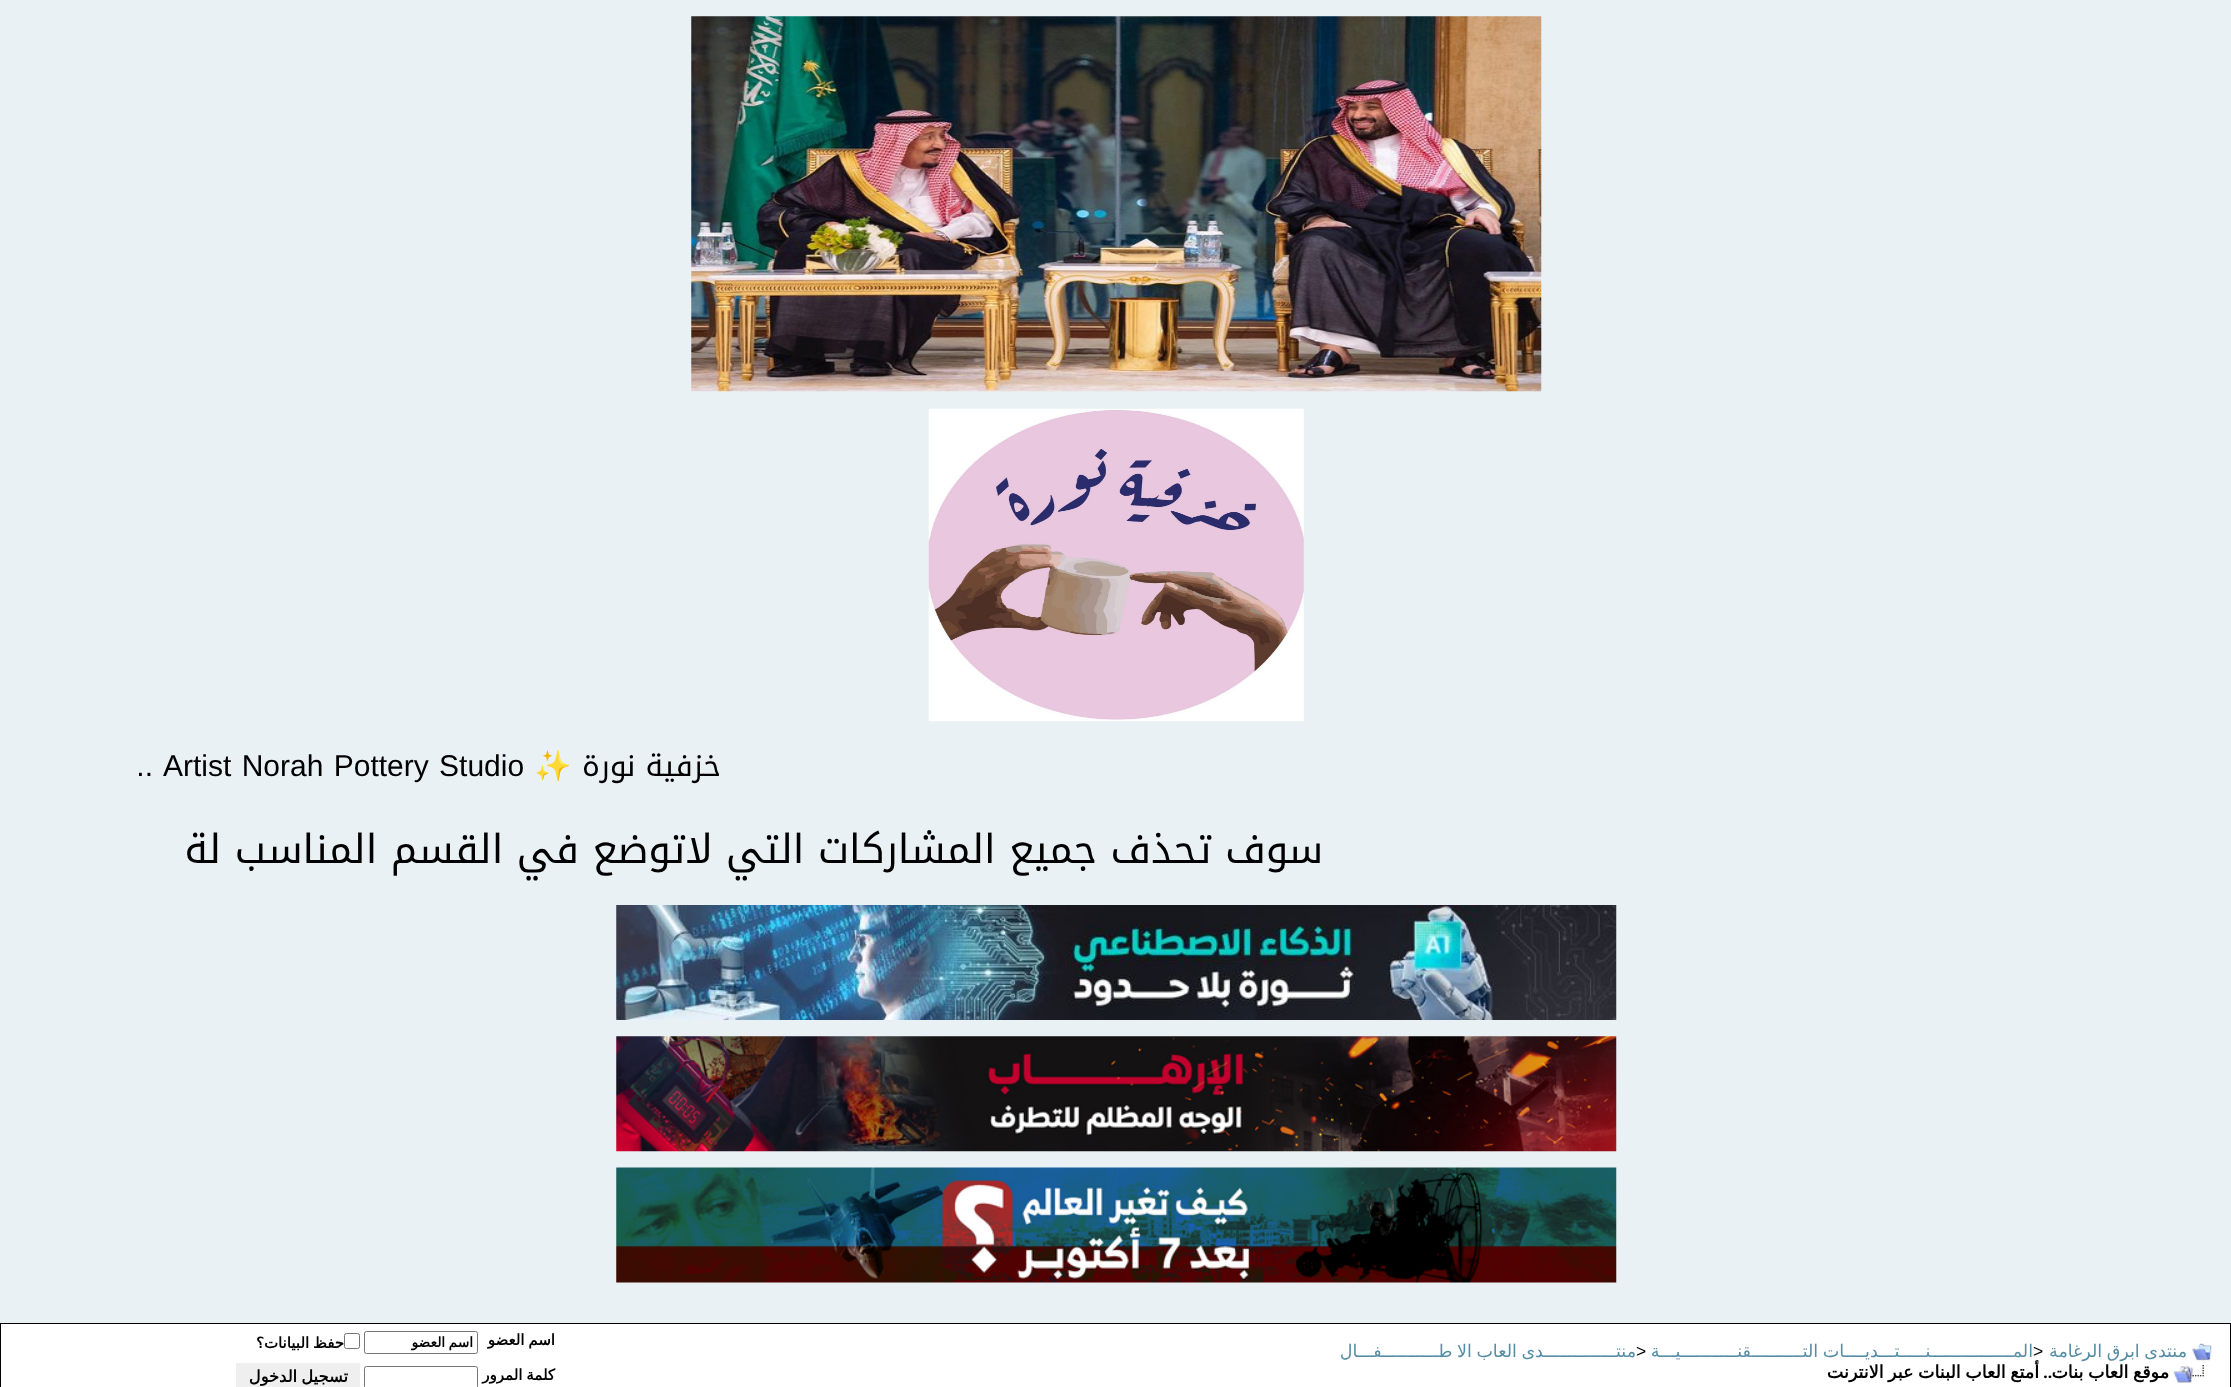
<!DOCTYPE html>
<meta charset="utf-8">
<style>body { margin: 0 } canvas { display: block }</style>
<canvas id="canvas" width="2231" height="1387"></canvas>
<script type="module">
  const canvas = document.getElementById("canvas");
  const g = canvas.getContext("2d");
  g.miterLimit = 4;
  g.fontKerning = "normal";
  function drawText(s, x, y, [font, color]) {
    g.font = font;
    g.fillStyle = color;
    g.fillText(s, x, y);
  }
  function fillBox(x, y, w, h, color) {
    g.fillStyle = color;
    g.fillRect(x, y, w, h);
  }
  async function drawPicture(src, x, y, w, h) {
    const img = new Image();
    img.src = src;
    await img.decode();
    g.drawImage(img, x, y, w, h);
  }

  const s1 = ["30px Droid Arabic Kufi", "#000000"];
  const s2 = ["30px Noto Color Emoji", "#000000"];
  const s3 = ["30px Liberation Sans", "#000000"];
  const s4 = ["40px Droid Arabic Kufi", "#000000"];
  const s5 = ["17.5px DejaVu Sans", "#568DA4"];
  const s6 = ["17.5px Liberation Sans", "#000000"];
  const s7 = ["bold 17.5px DejaVu Sans", "#000000"];
  const s8 = ["bold 17.5px Liberation Serif", "#000000"];
  const s9 = ["bold 15px DejaVu Sans", "#000000"];
  const s10 = ["bold 13.75px DejaVu Sans", "#000000"];
  const s11 = ["bold 16.25px DejaVu Sans", "#000000"];

  fillBox(0, 0, 2231, 1387, "#E9F1F5");
  await drawPicture("pic1.png", 691, 16, 851, 376);
  await drawPicture("pic2.png", 928, 408, 376, 314);
  g.direction = "rtl";
  drawText("خزفية نورة", 721, 776, s1);
  drawText("✨", 572, 776, s2);
  g.wordSpacing = "2px";
  g.direction = "ltr";
  drawText("Artist Norah Pottery Studio", 163, 776, s3);
  g.wordSpacing = "0px";
  g.direction = "rtl";
  drawText("..", 153, 776, s3);
  drawText("سوف تحذف جميع المشاركات التي لاتوضع في القسم المناسب لة", 1323, 863, s4);
  await drawPicture("pic3.png", 616, 905, 1001, 115);
  await drawPicture("pic4.png", 616, 1036, 1001, 116);
  await drawPicture("pic5.png", 616, 1167, 1001, 116);
  fillBox(0, 1323, 2231, 1, "#000000");
  fillBox(2230, 1323, 1, 64, "#000000");
  fillBox(0, 1323, 1, 64, "#000000");
  fillBox(1, 1324, 2229, 63, "#FFFFFF");
  await drawPicture("pic6.png", 2192, 1343, 20, 18);
  g.wordSpacing = "-1px";
  drawText("منتدى ابرق الرغامة", 2187, 1357, s5);
  g.wordSpacing = "0px";
  g.direction = "ltr";
  drawText(">", 2033, 1357, s6);
  g.wordSpacing = "-1px";
  g.direction = "rtl";
  drawText("المــــــــــــــــنـــــتـــديــــات التــــــــــقنـــــــــــيـــة", 2033, 1357, s5);
  g.wordSpacing = "0px";
  g.direction = "ltr";
  drawText(">", 1636, 1357, s6);
  g.wordSpacing = "-1px";
  g.direction = "rtl";
  drawText("منتــــــــــــــدى العاب الا طـــــــــــفـــال", 1636, 1357, s5);
  await drawPicture("pic7.png", 2173, 1365, 31, 18);
  drawText("موقع العاب بنات", 2169, 1378, s7);
  g.wordSpacing = "0px";
  drawText("..", 2052, 1378, s8);
  g.wordSpacing = "-1px";
  drawText("أمتع العاب البنات عبر الانترنت", 2039, 1378, s7);
  drawText("اسم العضو", 555, 1345, s9);
  g.beginPath();
  g.roundRect(364.5, 1331.5, 113, 22, 2);
  g.strokeStyle = "#767676";
  g.stroke();
  drawText("اسم العضو", 473, 1347, s10);
  g.beginPath();
  g.roundRect(344.5, 1333.5, 15, 15, 2);
  g.stroke();
  drawText("حفظ البيانات؟", 344, 1348, s9);
  drawText("كلمة المرور", 555, 1380, s9);
  g.beginPath();
  g.roundRect(364.5, 1366.5, 113, 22, 2);
  g.stroke();
  fillBox(236, 1363, 124, 24, "#EFEFEF");
  drawText("تسجيل الدخول", 348, 1382, s11);
</script>
